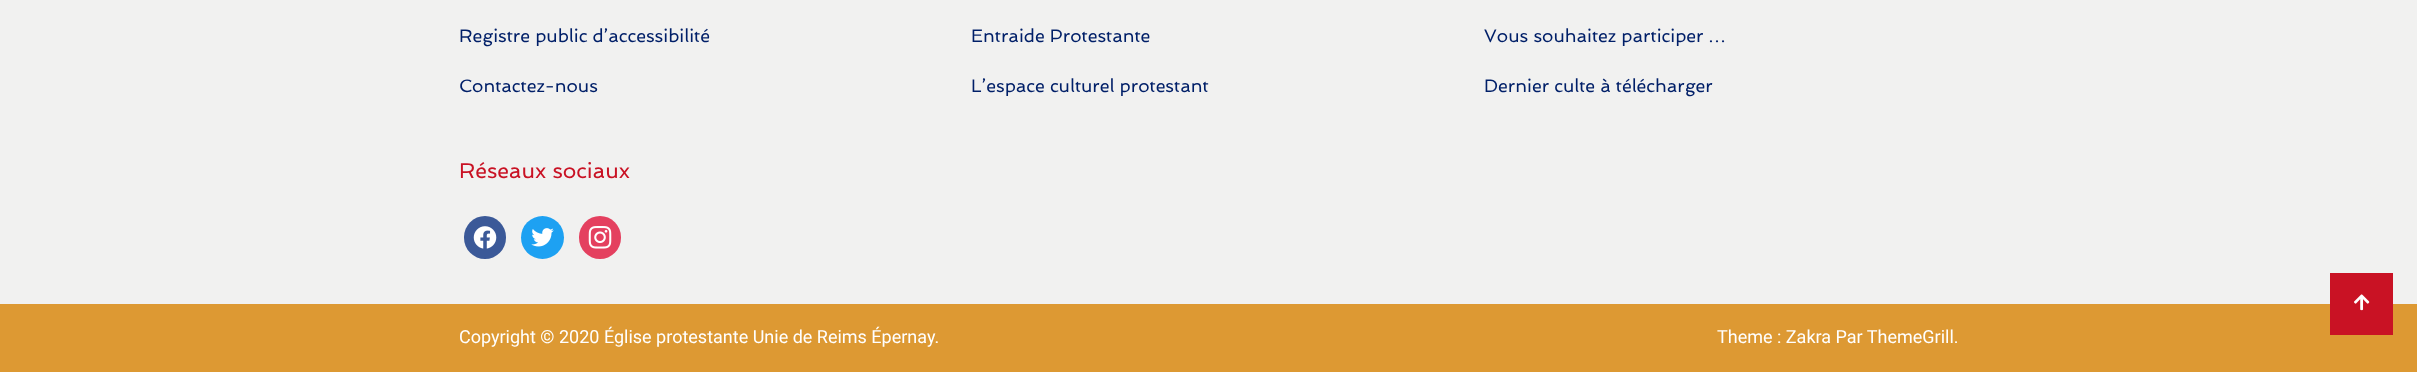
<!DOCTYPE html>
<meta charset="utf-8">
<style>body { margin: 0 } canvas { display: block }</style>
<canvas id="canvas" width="2417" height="372"></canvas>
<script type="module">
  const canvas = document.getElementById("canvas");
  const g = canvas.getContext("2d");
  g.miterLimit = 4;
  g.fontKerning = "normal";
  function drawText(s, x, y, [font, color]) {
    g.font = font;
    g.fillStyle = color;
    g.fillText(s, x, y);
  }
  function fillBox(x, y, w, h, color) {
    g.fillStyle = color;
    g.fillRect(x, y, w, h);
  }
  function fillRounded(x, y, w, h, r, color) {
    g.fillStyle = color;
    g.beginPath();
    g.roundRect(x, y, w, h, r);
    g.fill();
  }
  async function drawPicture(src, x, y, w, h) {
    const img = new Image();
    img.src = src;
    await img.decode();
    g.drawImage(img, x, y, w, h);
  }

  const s1 = ["18px Spinnaker", "#001F68"];
  const s2 = ["21.5px Spinnaker", "#C91224"];
  const s3 = ["18px Liberation Serif", "#001F68"];
  const s4 = ["18px Roboto", "#FFFFFF"];

  fillBox(0, 0, 2417, 372, "#F1F1F0");
  drawText("Registre public d’accessibilité", 459, 42, s1);
  drawText("Contactez-nous", 459, 92, s1);
  drawText("Réseaux sociaux", 459, 178, s2);
  fillRounded(464, 216, 42, 43, 21, "#3B5998");
  await drawPicture("pic1.png", 473, 226, 24, 23);
  g.fillStyle = "#1DA1F2";
  g.beginPath();
  g.arc(542.5, 237.5, 21.5, 0, Math.PI * 2);
  g.fill();
  await drawPicture("pic2.png", 531, 228, 23, 19);
  fillRounded(579, 216, 42, 43, 21, "#E4405F");
  await drawPicture("pic3.png", 588, 226, 24, 23);
  drawText("Entraide Protestante", 971, 42, s1);
  drawText("L’espace culturel protestant", 971, 92, s1);
  drawText("Vous souhaitez participer", 1484, 42, s1);
  drawText("…", 1708, 42, s3);
  drawText("Dernier culte à télécharger", 1484, 92, s1);
  fillBox(0, 304, 2417, 68, "#DD9933");
  drawText("Copyright © 2020 Église protestante Unie de Reims Épernay.", 459, 343, s4);
  drawText("Theme : Zakra Par ThemeGrill.", 1717, 343, s4);
  fillBox(2330, 273, 63, 62, "#C91224");
  await drawPicture("pic4.png", 2354, 294, 16, 17);
</script>
